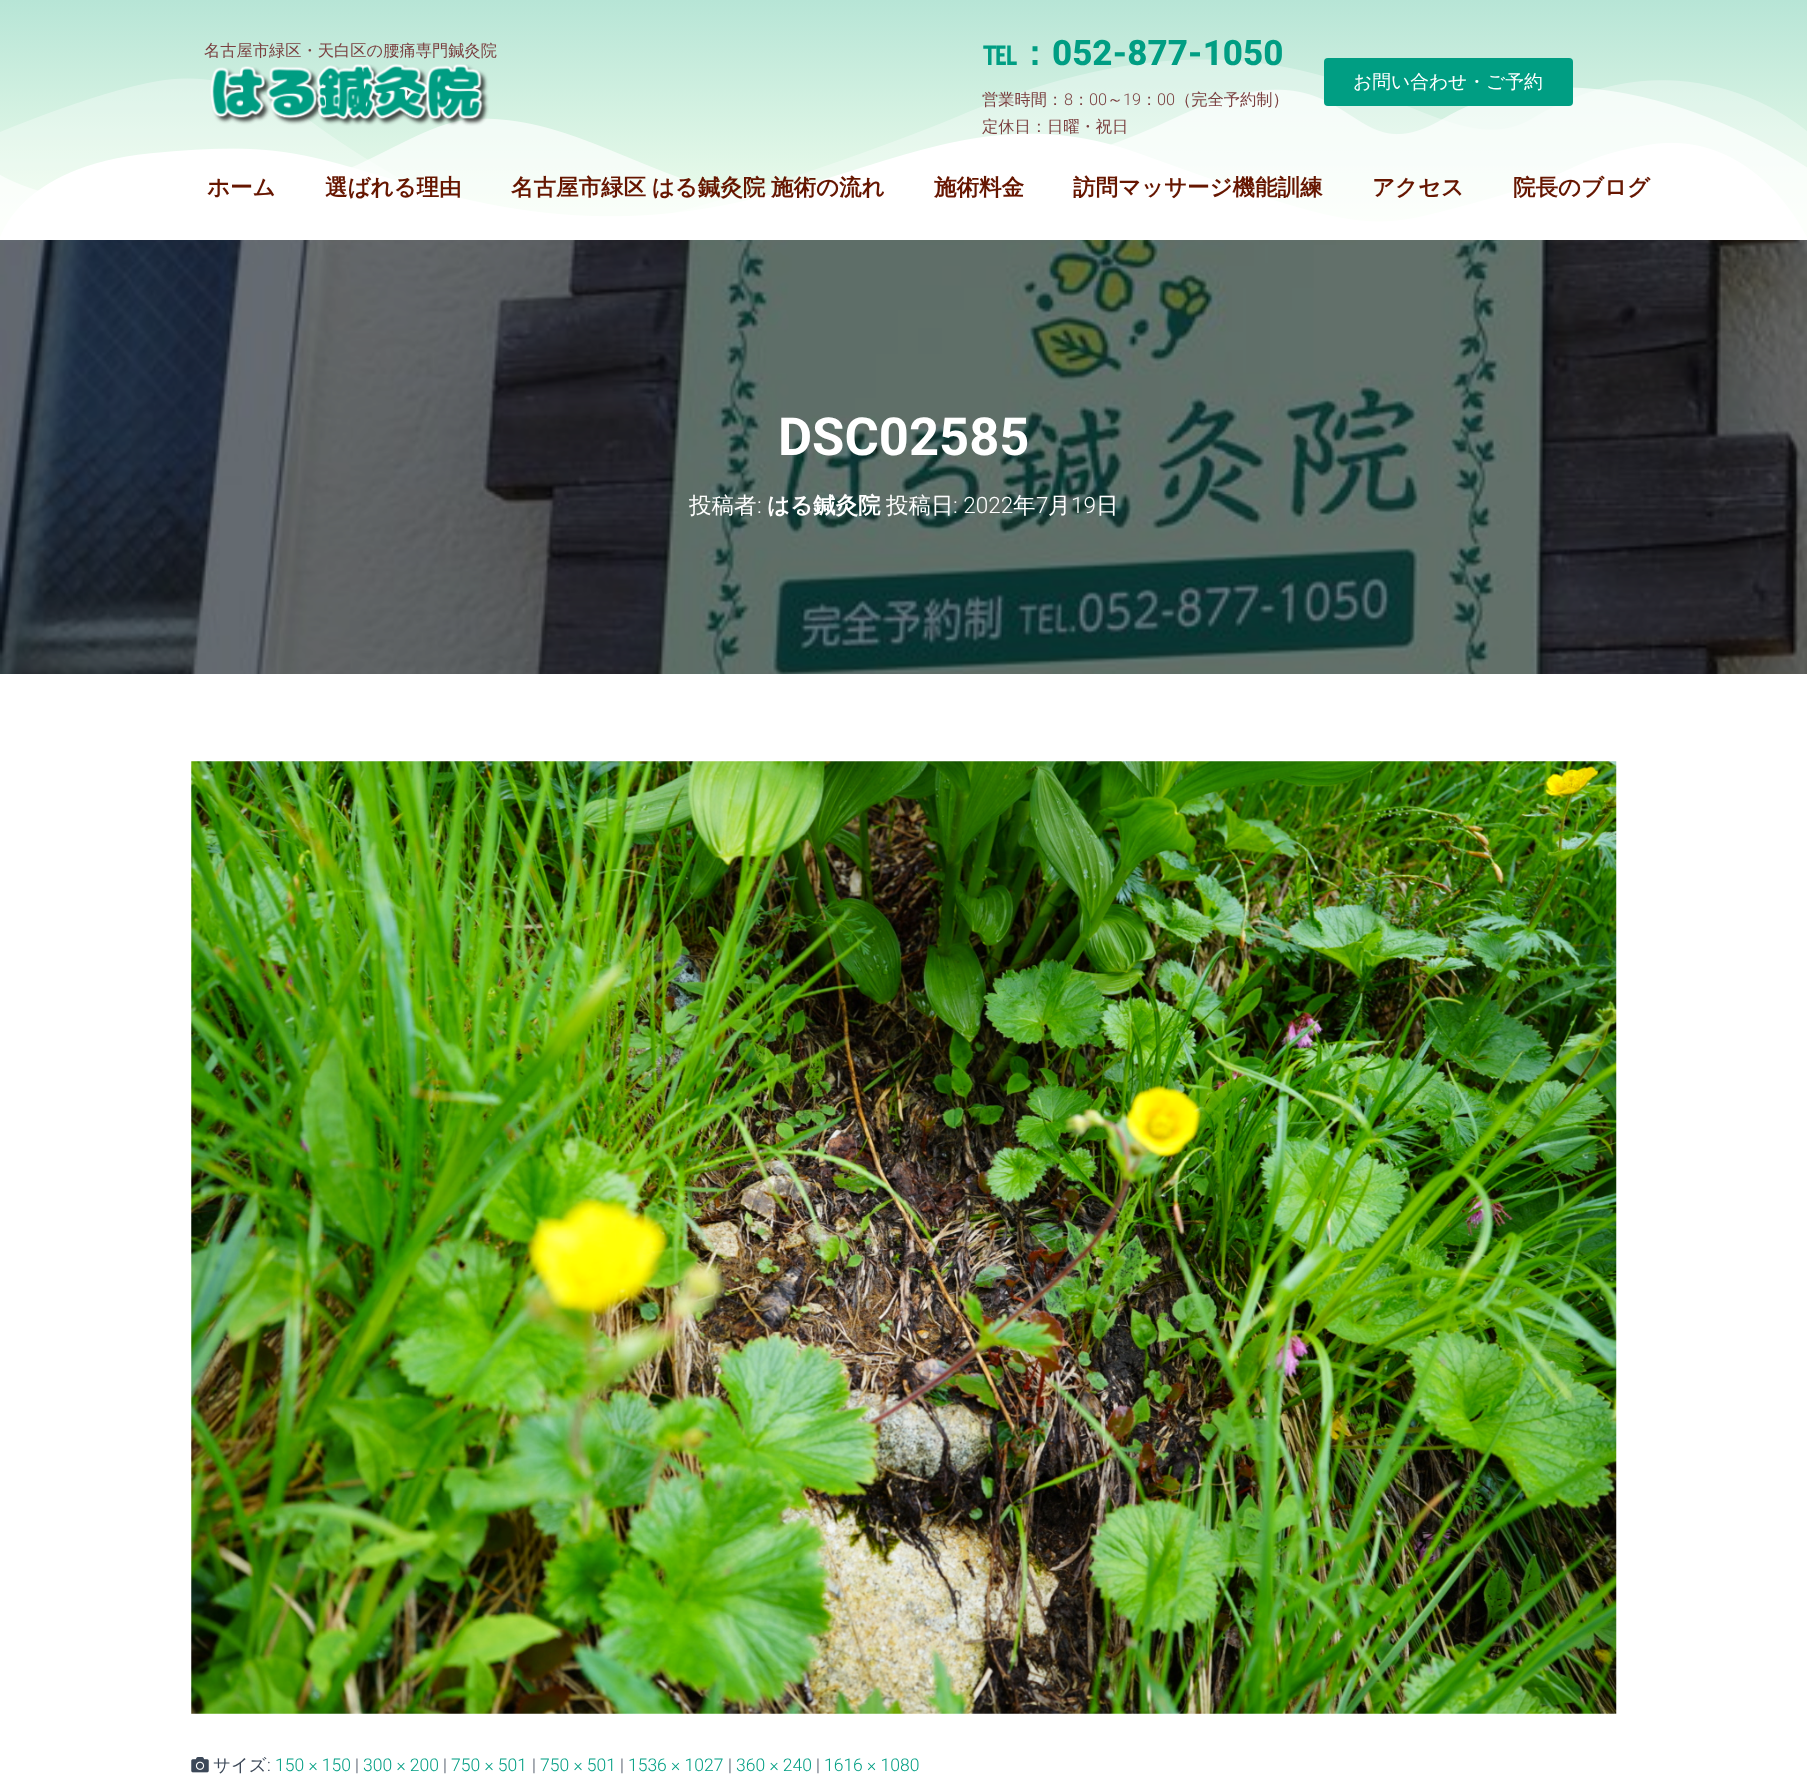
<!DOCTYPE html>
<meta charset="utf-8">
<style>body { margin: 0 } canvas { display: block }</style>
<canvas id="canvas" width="1807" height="1778"></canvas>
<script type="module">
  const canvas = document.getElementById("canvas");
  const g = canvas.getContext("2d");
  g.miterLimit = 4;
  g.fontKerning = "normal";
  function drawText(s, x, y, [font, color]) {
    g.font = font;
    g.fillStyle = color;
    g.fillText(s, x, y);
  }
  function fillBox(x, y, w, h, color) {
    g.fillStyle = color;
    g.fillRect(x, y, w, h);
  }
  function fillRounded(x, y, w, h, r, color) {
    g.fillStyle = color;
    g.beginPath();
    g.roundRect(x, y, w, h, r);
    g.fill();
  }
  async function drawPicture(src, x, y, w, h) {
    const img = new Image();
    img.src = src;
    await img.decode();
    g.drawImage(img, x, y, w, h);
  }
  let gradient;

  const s1 = ["500 16.25px WenQuanYi Zen Hei", "#7A3F3F"];
  const s2 = ["bold 35px WenQuanYi Zen Hei", "#009E83"];
  const s3 = ["800 35px Roboto", "#009E83"];
  const s4 = ["300 16.25px Roboto", "#7A3F3F"];
  const s5 = ["500 18.75px WenQuanYi Zen Hei", "#FFFFFF"];
  const s6 = ["bold 22.5px WenQuanYi Zen Hei", "#661600"];
  const s7 = ["bold 52.5px Roboto", "#FFFFFF"];
  const s8 = ["500 22.5px WenQuanYi Zen Hei", "#FFFFFF"];
  const s9 = ["300 22.5px Roboto", "#FFFFFF"];
  const s10 = ["bold 22.5px WenQuanYi Zen Hei", "#FFFFFF"];
  const s11 = ["500 17.5px WenQuanYi Zen Hei", "#3C4858"];
  const s12 = ["300 17.5px Roboto", "#3C4858"];
  const s13 = ["300 17.5px Roboto", "#009E83"];

  fillBox(0, 0, 1807, 1778, "#FFFFFF");
  gradient = g.createLinearGradient(904, 0, 904, 239);
  gradient.addColorStop(0, "#B7E5D6");
  gradient.addColorStop(1, "#F4FFEF");
  g.fillStyle = gradient;
  g.fillRect(0, 0, 1807, 238);
  drawText("名古屋市緑区・天白区の腰痛専門鍼灸院", 204, 56, s1);
  await drawPicture("pic2.png", 0, 59, 1807, 181);
  await drawPicture("pic1.png", 210, 63, 279, 63);
  drawText("℡：", 982, 65, s2);
  drawText("052-877-1050", 1052, 65, s3);
  drawText("営業時間：", 982, 105, s1);
  drawText("8", 1064, 105, s4);
  drawText("：", 1073, 105, s1);
  drawText("00", 1089, 105, s4);
  drawText("～", 1107, 105, s1);
  drawText("19", 1123, 105, s4);
  drawText("：", 1141, 105, s1);
  drawText("00", 1157, 105, s4);
  drawText("（完全予約制）", 1175, 105, s1);
  drawText("定休日：日曜・祝日", 982, 132, s1);
  fillRounded(1324, 58, 249, 48, 4, "#009E83");
  drawText("お問い合わせ・ご予約", 1353, 88, s5);
  drawText("ホーム", 207, 195, s6);
  drawText("選ばれる理由", 325, 195, s6);
  g.wordSpacing = "-1px";
  drawText("名古屋市緑区 はる鍼灸院 施術の流れ", 511, 195, s6);
  g.wordSpacing = "0px";
  drawText("施術料金", 934, 195, s6);
  drawText("訪問マッサージ機能訓練", 1073, 195, s6);
  drawText("アクセス", 1372, 195, s6);
  drawText("院長のブログ", 1513, 195, s6);
  await drawPicture("pic3.png", 0, 240, 1807, 434);
  drawText("DSC02585", 778, 455, s7);
  drawText("投稿者", 689, 513, s8);
  drawText(":", 757, 513, s9);
  drawText("はる鍼灸院", 767, 513, s10);
  drawText("投稿日", 886, 513, s8);
  drawText(": 2022", 953, 513, s9);
  drawText("年", 1013, 513, s8);
  drawText("7", 1036, 513, s9);
  drawText("月", 1048, 513, s8);
  drawText("19", 1071, 513, s9);
  drawText("日", 1096, 513, s8);
  await drawPicture("pic4.png", 191, 761, 1426, 953);
  await drawPicture("pic5.png", 191, 1757, 18, 16);
  drawText("サイズ", 213, 1771, s11);
  drawText(":", 267, 1771, s12);
  drawText("150 × 150", 275, 1771, s13);
  drawText("|", 355, 1771, s12);
  drawText("300 × 200", 363, 1771, s13);
  drawText("|", 443, 1771, s12);
  drawText("750 × 501", 451, 1771, s13);
  drawText("|", 532, 1771, s12);
  drawText("750 × 501", 540, 1771, s13);
  drawText("|", 620, 1771, s12);
  drawText("1536 × 1027", 628, 1771, s13);
  drawText("|", 728, 1771, s12);
  drawText("360 × 240", 736, 1771, s13);
  drawText("|", 816, 1771, s12);
  drawText("1616 × 1080", 824, 1771, s13);
</script>
